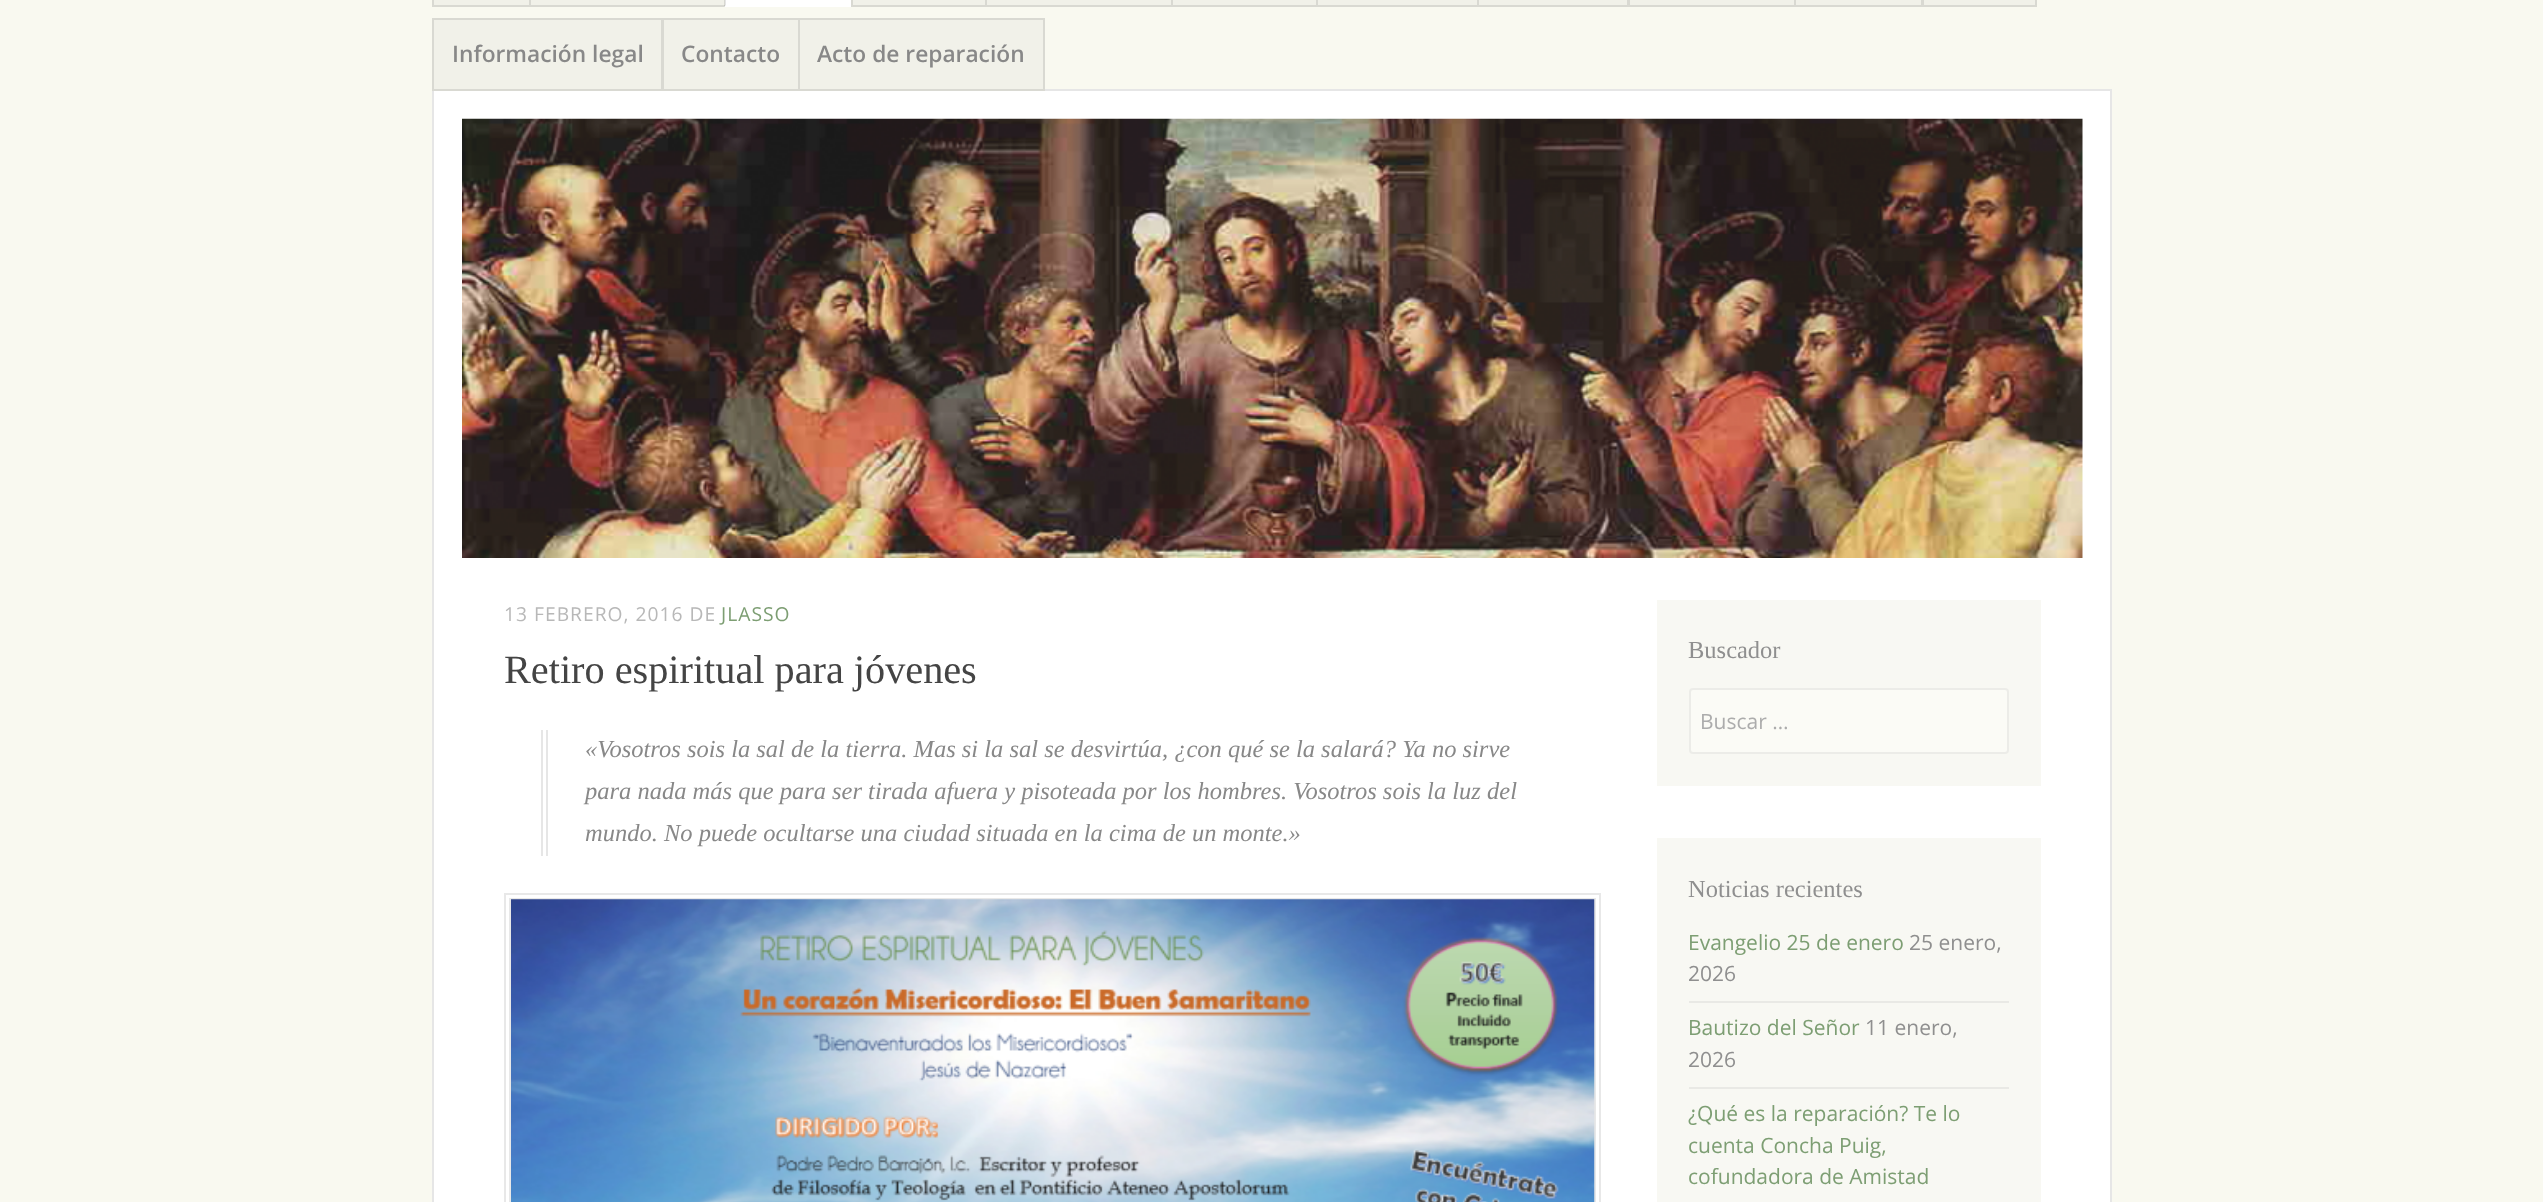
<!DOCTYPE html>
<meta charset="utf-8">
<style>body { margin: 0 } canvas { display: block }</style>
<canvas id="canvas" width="2543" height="1202"></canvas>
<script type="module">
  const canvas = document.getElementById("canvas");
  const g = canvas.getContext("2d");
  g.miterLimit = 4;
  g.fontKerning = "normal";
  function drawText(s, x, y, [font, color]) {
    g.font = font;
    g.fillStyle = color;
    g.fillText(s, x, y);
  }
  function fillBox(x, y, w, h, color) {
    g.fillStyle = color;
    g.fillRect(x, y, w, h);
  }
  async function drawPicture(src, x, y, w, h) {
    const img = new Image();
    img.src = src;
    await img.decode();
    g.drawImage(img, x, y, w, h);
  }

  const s1 = ["600 22.75px Open Sans", "#888888"];
  const s2 = ["19.25px Open Sans", "#B8B8B8"];
  const s3 = ["19.25px Open Sans", "#7D9E73"];
  const s4 = ["40.25px Liberation Serif", "#444444"];
  const s5 = ["italic 24.5px Liberation Serif", "#888888"];
  const s6 = ["24.5px Liberation Serif", "#8F8F8F"];
  const s7 = ["21px Open Sans", "#ACACAC"];
  const s8 = ["21px Open Sans", "#7D9E73"];
  const s9 = ["21px Open Sans", "#8F8F8F"];

  fillBox(0, 0, 2543, 1202, "#F9F9F0");
  g.fillStyle = "#F1F1E9";
  g.beginPath();
  g.rect(433, -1, 98, 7);
  g.fill();
  g.strokeStyle = "#D9D9D2";
  g.lineWidth = 2;
  g.stroke();
  g.beginPath();
  g.rect(530, -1, 197, 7);
  g.fill();
  g.stroke();
  fillBox(725, 0, 129, 6, "#FFFFFF");
  g.beginPath();
  g.moveTo(854, 7);
  g.lineTo(724, 7);
  g.lineTo(726, 5);
  g.lineTo(852, 5);
  g.closePath();
  g.fill();
  g.fillStyle = "rgba(0, 0, 0, 0.1)";
  g.beginPath();
  g.moveTo(724, 7);
  g.lineTo(724, -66);
  g.lineTo(726, -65);
  g.lineTo(726, 5);
  g.closePath();
  g.fill();
  g.fillStyle = "#F1F1E9";
  g.beginPath();
  g.rect(852, -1, 136, 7);
  g.fill();
  g.stroke();
  g.beginPath();
  g.rect(986, -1, 187, 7);
  g.fill();
  g.stroke();
  g.beginPath();
  g.rect(1172, -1, 147, 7);
  g.fill();
  g.stroke();
  g.beginPath();
  g.rect(1317, -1, 163, 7);
  g.fill();
  g.stroke();
  g.beginPath();
  g.rect(1478, -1, 150, 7);
  g.fill();
  g.stroke();
  g.beginPath();
  g.rect(1629, -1, 167, 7);
  g.fill();
  g.stroke();
  g.beginPath();
  g.rect(1795, -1, 127, 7);
  g.fill();
  g.stroke();
  g.beginPath();
  g.rect(1923, -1, 113, 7);
  g.fill();
  g.stroke();
  g.fillStyle = "#FFFFFF";
  g.beginPath();
  g.rect(433, 90, 1678, 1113);
  g.fill();
  g.strokeStyle = "#E6E6E6";
  g.stroke();
  g.fillStyle = "#F1F1E9";
  g.beginPath();
  g.rect(433, 19, 229, 71);
  g.fill();
  g.strokeStyle = "#D9D9D2";
  g.stroke();
  drawText("Información legal", 452, 62, s1);
  g.fillStyle = "#F1F1E9";
  g.beginPath();
  g.rect(663, 19, 136, 71);
  g.fill();
  g.stroke();
  drawText("Contacto", 681, 62, s1);
  g.fillStyle = "#F1F1E9";
  g.beginPath();
  g.rect(799, 19, 245, 71);
  g.fill();
  g.stroke();
  drawText("Acto de reparación", 817, 62, s1);
  await drawPicture("pic1.png", 462, 118, 1621, 440);
  g.letterSpacing = "1px";
  drawText("13 FEBRERO, 2016 DE", 504, 621, s2);
  drawText("JLASSO", 721, 621, s3);
  g.letterSpacing = "0px";
  drawText("Retiro espiritual para jóvenes", 504, 683, s4);
  fillBox(541, 730, 2, 126, "#E6E6E6");
  fillBox(546, 730, 2, 126, "#E6E6E6");
  drawText("«Vosotros sois la sal de la tierra. Mas si la sal se desvirtúa, ¿con qué se la salará? Ya no sirve", 585, 757, s5);
  drawText("para nada más que para ser tirada afuera y pisoteada por los hombres. Vosotros sois la luz del", 585, 799, s5);
  drawText("mundo. No puede ocultarse una ciudad situada en la cima de un monte.»", 585, 841, s5);
  g.strokeStyle = "#E8E8E8";
  g.strokeRect(505, 894, 1095, 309);
  g.strokeRect(510, 899, 1085, 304);
  await drawPicture("pic2.png", 511, 899, 1084, 303);
  fillBox(1657, 600, 384, 186, "#F8F8F3");
  drawText("Buscador", 1688, 658, s6);
  g.fillStyle = "#FBFBF6";
  g.beginPath();
  g.roundRect(1690, 689, 318, 64, 3);
  g.fill();
  g.strokeStyle = "#ECECE8";
  g.stroke();
  drawText("Buscar …", 1700, 729, s7);
  fillBox(1657, 838, 384, 364, "#F8F8F3");
  drawText("Noticias recientes", 1688, 897, s6);
  fillBox(1689, 1001, 320, 2, "#E9E9E5");
  drawText("Evangelio 25 de enero", 1688, 950, s8);
  drawText("25 enero,", 1909, 950, s9);
  drawText("2026", 1688, 981, s9);
  fillBox(1689, 1087, 320, 2, "#E9E9E5");
  drawText("Bautizo del Señor", 1688, 1035, s8);
  drawText("11 enero,", 1865, 1035, s9);
  drawText("2026", 1688, 1067, s9);
  drawText("¿Qué es la reparación? Te lo", 1688, 1121, s8);
  drawText("cuenta Concha Puig,", 1688, 1153, s8);
  drawText("cofundadora de Amistad", 1688, 1184, s8);
</script>
